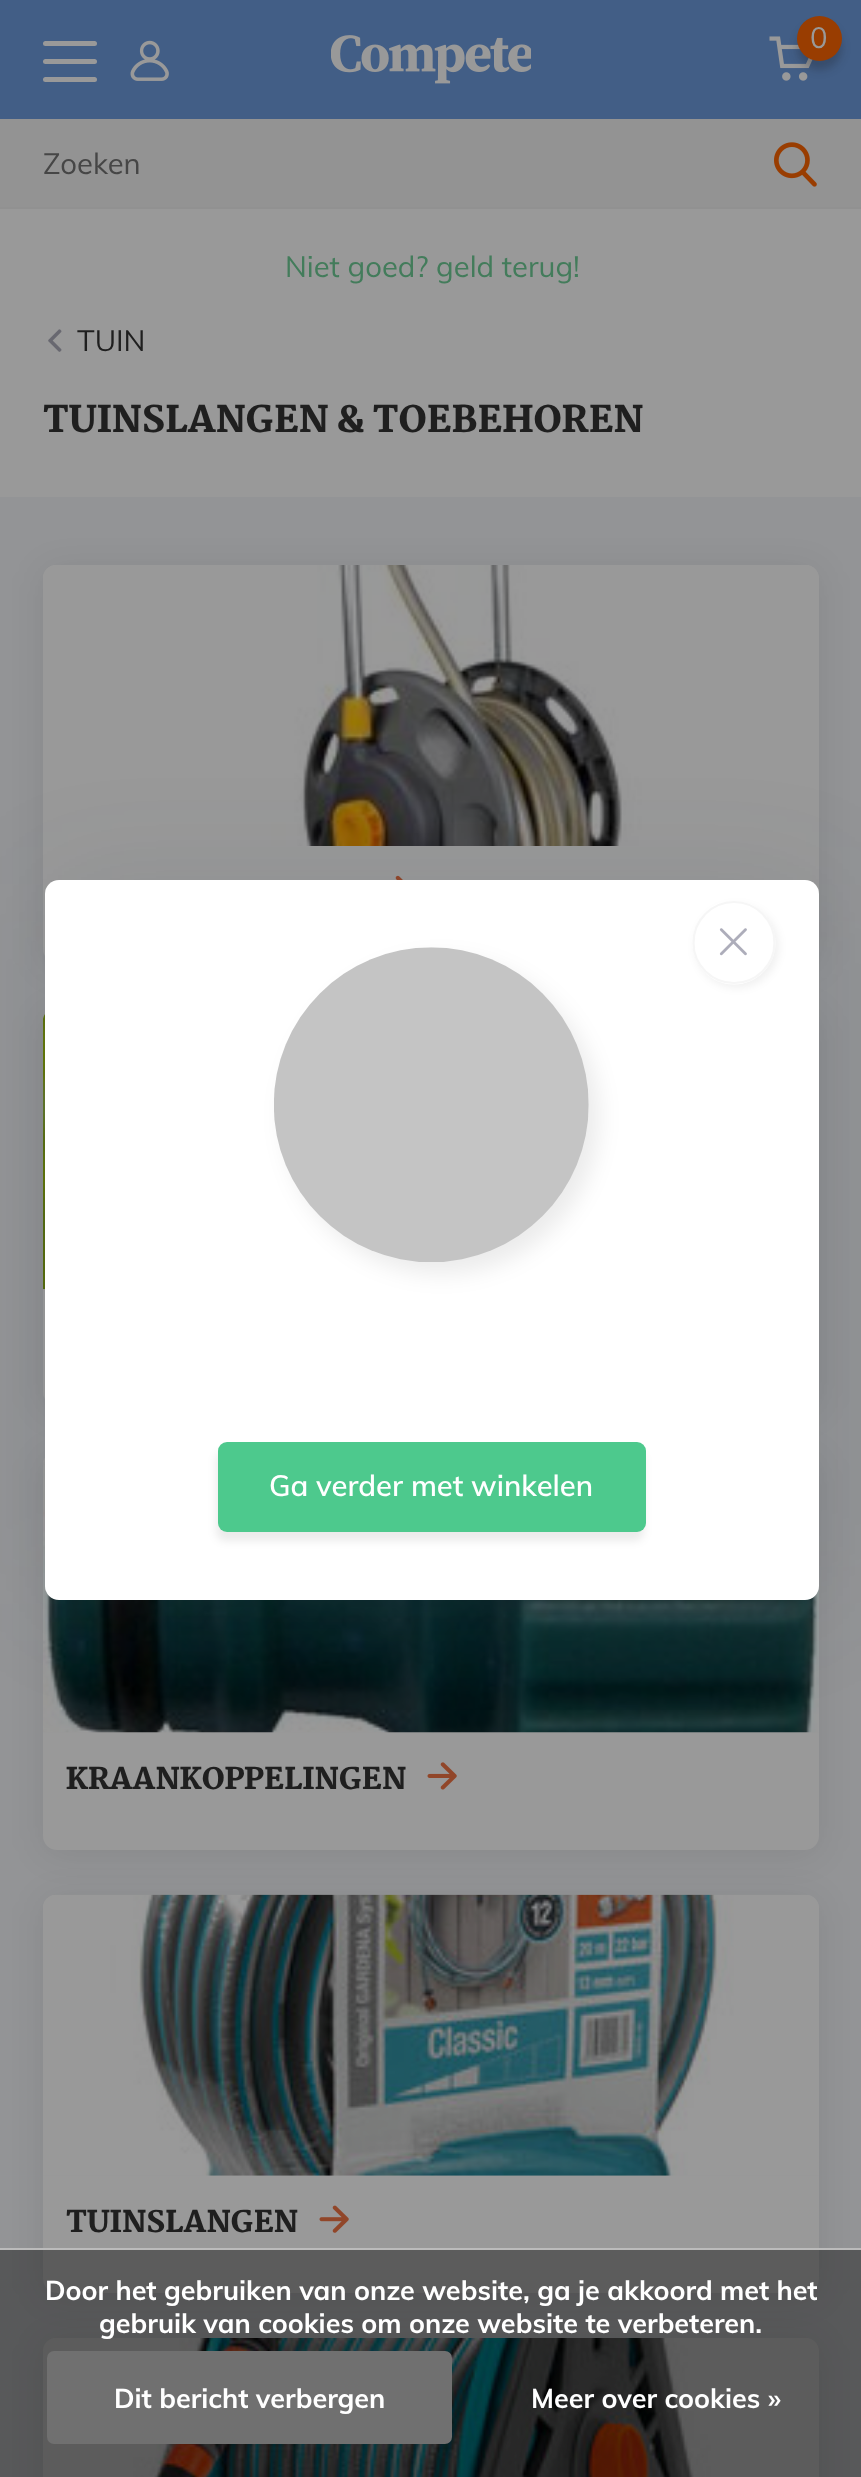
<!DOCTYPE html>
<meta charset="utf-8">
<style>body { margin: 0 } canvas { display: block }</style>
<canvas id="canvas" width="861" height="2477"></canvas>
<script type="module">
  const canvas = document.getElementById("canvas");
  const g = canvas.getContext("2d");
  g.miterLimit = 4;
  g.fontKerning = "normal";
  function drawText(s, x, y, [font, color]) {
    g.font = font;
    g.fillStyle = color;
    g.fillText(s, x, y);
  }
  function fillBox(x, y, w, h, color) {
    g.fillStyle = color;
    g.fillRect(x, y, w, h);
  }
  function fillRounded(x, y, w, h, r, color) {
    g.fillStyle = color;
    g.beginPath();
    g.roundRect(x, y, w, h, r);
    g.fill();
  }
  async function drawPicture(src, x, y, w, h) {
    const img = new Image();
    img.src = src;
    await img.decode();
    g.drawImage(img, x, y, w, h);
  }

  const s1 = ["29.25px Muli", "#999999"];
  const s2 = ["29.25px Muli", "#464646"];
  const s3 = ["29.25px Muli", "#437C5B"];
  const s4 = ["29.25px Muli", "#1F1F1F"];
  const s5 = ["900 36px Martel", "#1F1F1F"];
  const s6 = ["900 29.25px Martel", "#1F1F1F"];
  const s7 = ["600 29.25px Muli", "#FFFFFF"];
  const s8 = ["bold 27px Muli", "#FFFFFF"];

  fillBox(0, 0, 861, 2477, "#999999");
  fillBox(0, 0, 861, 119, "#425E86");
  fillRounded(43, 41, 54, 5, 2.5, "#999999");
  fillRounded(43, 59, 54, 5, 2.5, "#999999");
  fillRounded(43, 77, 54, 5, 2.5, "#999999");
  await drawPicture("pic1.png", 130, 40, 39, 41);
  await drawPicture("pic2.png", 331, 35, 200, 49);
  await drawPicture("pic3.png", 769, 36, 44, 45);
  g.fillStyle = "rgba(24, 24, 29, 0.25)";
  g.filter = "blur(4.5px)";
  g.beginPath();
  g.roundRect(797, 25, 45, 45, 22.5);
  g.fill();
  g.filter = "none";
  g.fillStyle = "#993D01";
  g.beginPath();
  g.arc(819.5, 38.5, 22.5, 0, Math.PI * 2);
  g.fill();
  drawText("0", 810, 48, s1);
  fillBox(0, 119, 861, 88, "#939393");
  fillBox(0, 207, 861, 2, "#919191");
  drawText("Zoeken", 43, 174, s2);
  await drawPicture("pic4.png", 774, 142, 43, 45);
  drawText("Niet goed? geld terug!", 285, 277, s3);
  await drawPicture("pic5.png", 48, 329, 14, 23);
  drawText("TUIN", 77, 351, s4);
  drawText("TUINSLANGEN & TOEBEHOREN", 43, 432, s5);
  fillBox(0, 497, 861, 1980, "#939496");
  g.fillStyle = "rgba(0, 0, 0, 0.08)";
  g.filter = "blur(17px)";
  g.beginPath();
  g.roundRect(43, 569, 776, 399, 14);
  g.fill();
  g.filter = "none";
  fillRounded(43, 565, 776, 398, 14, "#999999");
  await drawPicture("pic6.png", 43, 565, 776, 281);
  await drawPicture("pic7.png", 395, 875, 8, 5);
  g.fillStyle = "rgba(0, 0, 0, 0.08)";
  g.filter = "blur(17px)";
  g.beginPath();
  g.roundRect(43, 1013, 776, 398, 14);
  g.fill();
  g.filter = "none";
  fillRounded(43, 1008, 776, 398, 14, "#999999");
  await drawPicture("pic8.png", 43, 1014, 2, 276);
  g.fillStyle = "rgba(0, 0, 0, 0.08)";
  g.filter = "blur(17px)";
  g.beginPath();
  g.roundRect(43, 1456, 776, 398, 14);
  g.fill();
  g.filter = "none";
  fillRounded(43, 1451, 776, 399, 14, "#999999");
  await drawPicture("pic9.png", 43, 1457, 776, 276);
  drawText("KRAANKOPPELINGEN", 66, 1789, s6);
  await drawPicture("pic10.png", 427, 1762, 30, 28);
  g.fillStyle = "rgba(0, 0, 0, 0.08)";
  g.filter = "blur(17px)";
  g.beginPath();
  g.roundRect(43, 1899, 776, 398, 14);
  g.fill();
  g.filter = "none";
  fillRounded(43, 1895, 776, 398, 14, "#999999");
  await drawPicture("pic11.png", 43, 1894, 776, 282);
  drawText("TUINSLANGEN", 66, 2232, s6);
  await drawPicture("pic12.png", 319, 2205, 30, 28);
  g.fillStyle = "rgba(0, 0, 0, 0.08)";
  g.filter = "blur(17px)";
  g.beginPath();
  g.roundRect(43, 2342, 776, 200, 14);
  g.fill();
  g.filter = "none";
  await drawPicture("pic13.png", 43, 2338, 776, 139);
  g.fillStyle = "rgba(38, 63, 77, 0.1)";
  g.filter = "blur(56px)";
  g.beginPath();
  g.roundRect(50, 884, 774, 720, 14);
  g.fill();
  g.filter = "none";
  fillRounded(45, 880, 774, 720, 14, "#FFFFFF");
  g.fillStyle = "rgba(0, 0, 0, 0.08)";
  g.filter = "blur(11px)";
  g.beginPath();
  g.roundRect(284, 959, 315, 315, 157.5);
  g.fill();
  g.filter = "none";
  await drawPicture("pic14.png", 274, 947, 315, 315);
  g.save();
  g.beginPath();
  g.moveTo(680, 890);
  g.lineTo(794, 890);
  g.lineTo(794, 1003);
  g.lineTo(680, 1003);
  g.closePath();
  g.moveTo(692.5, 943);
  g.bezierCurveTo(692.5, 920, 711, 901, 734, 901);
  g.bezierCurveTo(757, 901, 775.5, 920, 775.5, 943);
  g.bezierCurveTo(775.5, 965.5, 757, 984.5, 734, 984.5);
  g.bezierCurveTo(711, 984.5, 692.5, 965.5, 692.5, 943);
  g.closePath();
  g.clip("evenodd");
  g.fillStyle = "rgba(0, 0, 0, 0.06)";
  g.filter = "blur(4.5px)";
  g.beginPath();
  g.roundRect(695, 905, 84, 83, 41.5);
  g.fill();
  g.filter = "none";
  g.restore();
  g.beginPath();
  g.moveTo(693.5, 943);
  g.bezierCurveTo(693.5, 920.5, 711.5, 902, 734, 902);
  g.bezierCurveTo(756.5, 902, 774.5, 920.5, 774.5, 943);
  g.bezierCurveTo(774.5, 965, 756.5, 983, 734, 983);
  g.bezierCurveTo(711.5, 983, 693.5, 965, 693.5, 943);
  g.closePath();
  g.strokeStyle = "#F6F6F6";
  g.lineWidth = 2.2;
  g.stroke();
  await drawPicture("pic15.png", 719, 928, 28, 28);
  g.filter = "blur(4.5px)";
  g.beginPath();
  g.roundRect(216, 1451, 428, 90, 9);
  g.fill();
  g.filter = "none";
  fillRounded(218, 1442, 428, 90, 9, "#4DC98D");
  drawText("Ga verder met winkelen", 269, 1496, s7);
  fillBox(0, 2250, 861, 227, "rgba(0, 0, 0, 0.4)");
  fillBox(0, 2248, 861, 2, "#BBBBBB");
  drawText("Door het gebruiken van onze website, ga je akkoord met het", 45, 2300, s8);
  drawText("gebruik van cookies om onze website te verbeteren.", 99, 2333, s8);
  fillRounded(47, 2351, 405, 93, 7, "#707070");
  drawText("Dit bericht verbergen", 114, 2408, s8);
  drawText("Meer over cookies »", 531, 2408, s8);
</script>
